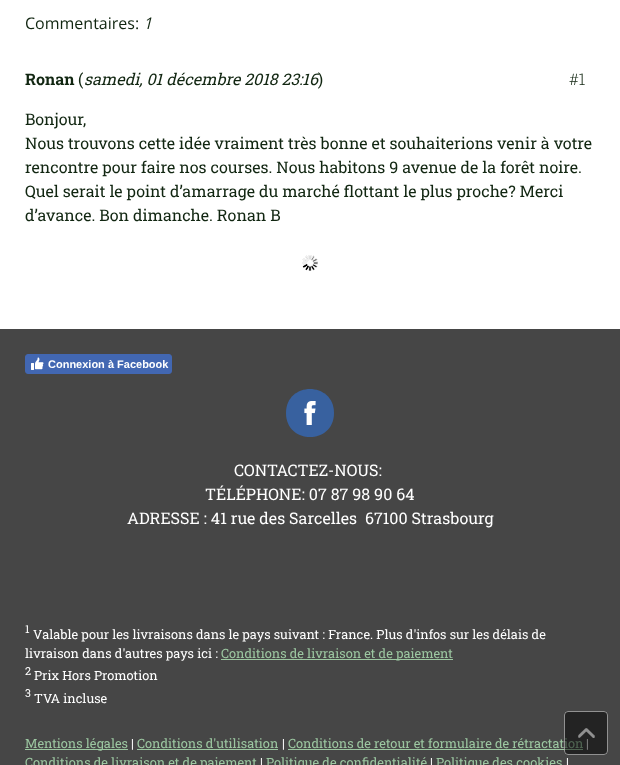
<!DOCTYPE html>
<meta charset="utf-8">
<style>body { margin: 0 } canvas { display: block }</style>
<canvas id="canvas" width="620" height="765"></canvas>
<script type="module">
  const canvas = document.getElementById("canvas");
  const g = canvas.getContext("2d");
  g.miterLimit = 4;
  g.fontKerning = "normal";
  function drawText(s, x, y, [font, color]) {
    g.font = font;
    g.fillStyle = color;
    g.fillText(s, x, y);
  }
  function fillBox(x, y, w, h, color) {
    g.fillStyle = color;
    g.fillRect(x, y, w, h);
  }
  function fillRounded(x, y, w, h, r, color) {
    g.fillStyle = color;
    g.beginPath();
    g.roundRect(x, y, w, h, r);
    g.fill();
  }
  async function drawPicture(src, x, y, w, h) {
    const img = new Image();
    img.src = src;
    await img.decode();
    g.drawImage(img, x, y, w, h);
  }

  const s1 = ["16px Open Sans", "#112611"];
  const s2 = ["italic 16px Open Sans", "#112611"];
  const s3 = ["bold 16px Roboto Slab", "#112611"];
  const s4 = ["16px Roboto Slab", "#112611"];
  const s5 = ["italic 16px Roboto Slab", "#112611"];
  const s6 = ["300 16px Roboto Slab", "#112611"];
  const s7 = ["bold 11px Liberation Sans", "#FFFFFF"];
  const s8 = ["16px Roboto Slab", "#FFFFFF"];
  const s9 = ["11px Roboto Slab", "#FFFFFF"];
  const s10 = ["12.8px Roboto Slab", "#FFFFFF"];
  const s11 = ["12.8px Roboto Slab", "#9CC7A1"];

  fillBox(0, 0, 620, 765, "#FFFFFF");
  drawText("Commentaires:", 25, 29, s1);
  drawText("1", 143, 29, s2);
  drawText("Ronan", 25, 85, s3);
  drawText("(", 78, 85, s4);
  drawText("samedi, 01 décembre 2018 23:16", 84, 85, s5);
  drawText(")", 318, 85, s4);
  drawText("#1", 569, 85, s6);
  drawText("Bonjour,", 25, 125, s4);
  drawText("Nous trouvons cette idée vraiment très bonne et souhaiterions venir à votre", 25, 149, s4);
  drawText("rencontre pour faire nos courses. Nous habitons 9 avenue de la forêt noire.", 25, 173, s4);
  drawText("Quel serait le point d’amarrage du marché flottant le plus proche? Merci", 25, 197, s4);
  drawText("d’avance. Bon dimanche. Ronan B", 25, 221, s4);
  await drawPicture("pic1.png", 302, 255, 16, 16);
  fillBox(0, 329, 620, 436, "#464646");
  g.fillStyle = "#4267B2";
  g.beginPath();
  g.roundRect(25.5, 354.5, 146, 19, 2.5);
  g.fill();
  g.strokeStyle = "#4267B2";
  g.stroke();
  await drawPicture("pic2.png", 31, 357, 13, 13);
  drawText("Connexion à Facebook", 48, 368, s7);
  g.fillStyle = "#38619F";
  g.beginPath();
  g.moveTo(286, 413);
  g.bezierCurveTo(286, 445, 334, 445, 334, 413);
  g.bezierCurveTo(334, 381, 286, 381, 286, 413);
  g.closePath();
  g.fill();
  await drawPicture("pic3.png", 304, 401, 12, 24);
  drawText("CONTACTEZ-NOUS:", 234, 476, s8);
  drawText("TÉLÉPHONE: 07 87 98 90 64", 205, 500, s8);
  drawText("ADRESSE : 41 rue des Sarcelles  67100 Strasbourg", 127, 524, s8);
  drawText("1", 25, 633, s9);
  drawText("Valable pour les livraisons dans le pays suivant : France. Plus d'infos sur les délais de", 33, 639, s10);
  drawText("livraison dans d'autres pays ici :", 25, 658, s10);
  fillBox(221, 659, 232, 1, "#9CC7A1");
  drawText("Conditions de livraison et de paiement", 221, 658, s11);
  drawText("2", 25, 675, s9);
  drawText("Prix Hors Promotion", 34, 680, s10);
  drawText("3", 25, 697, s9);
  drawText("TVA incluse", 34, 703, s10);
  fillBox(25, 749, 103, 1, "#9CC7A1");
  drawText("Mentions légales", 25, 748, s11);
  drawText("|", 131, 748, s10);
  drawText("Conditions d'utilisation", 137, 748, s11);
  fillBox(137, 749, 141, 1, "#9CC7A1");
  drawText("|", 282, 748, s10);
  drawText("Conditions de retour et formulaire de rétractation", 288, 748, s11);
  fillBox(288, 749, 295, 1, "#9CC7A1");
  drawText("|", 586, 748, s10);
  drawText("Conditions de livraison et de paiement", 25, 767, s11);
  drawText("|", 260, 767, s10);
  drawText("Politique de confidentialité", 266, 767, s11);
  drawText("|", 430, 767, s10);
  drawText("Politique des cookies", 436, 767, s11);
  drawText("|", 566, 767, s10);
  fillRounded(564, 711, 44, 44, 4, "rgba(0, 0, 0, 0.5)");
  g.beginPath();
  g.roundRect(564.5, 711.5, 43, 43, 3.5);
  g.strokeStyle = "rgba(255, 255, 255, 0.5)";
  g.stroke();
  await drawPicture("pic4.png", 578, 728, 17, 10);
</script>
